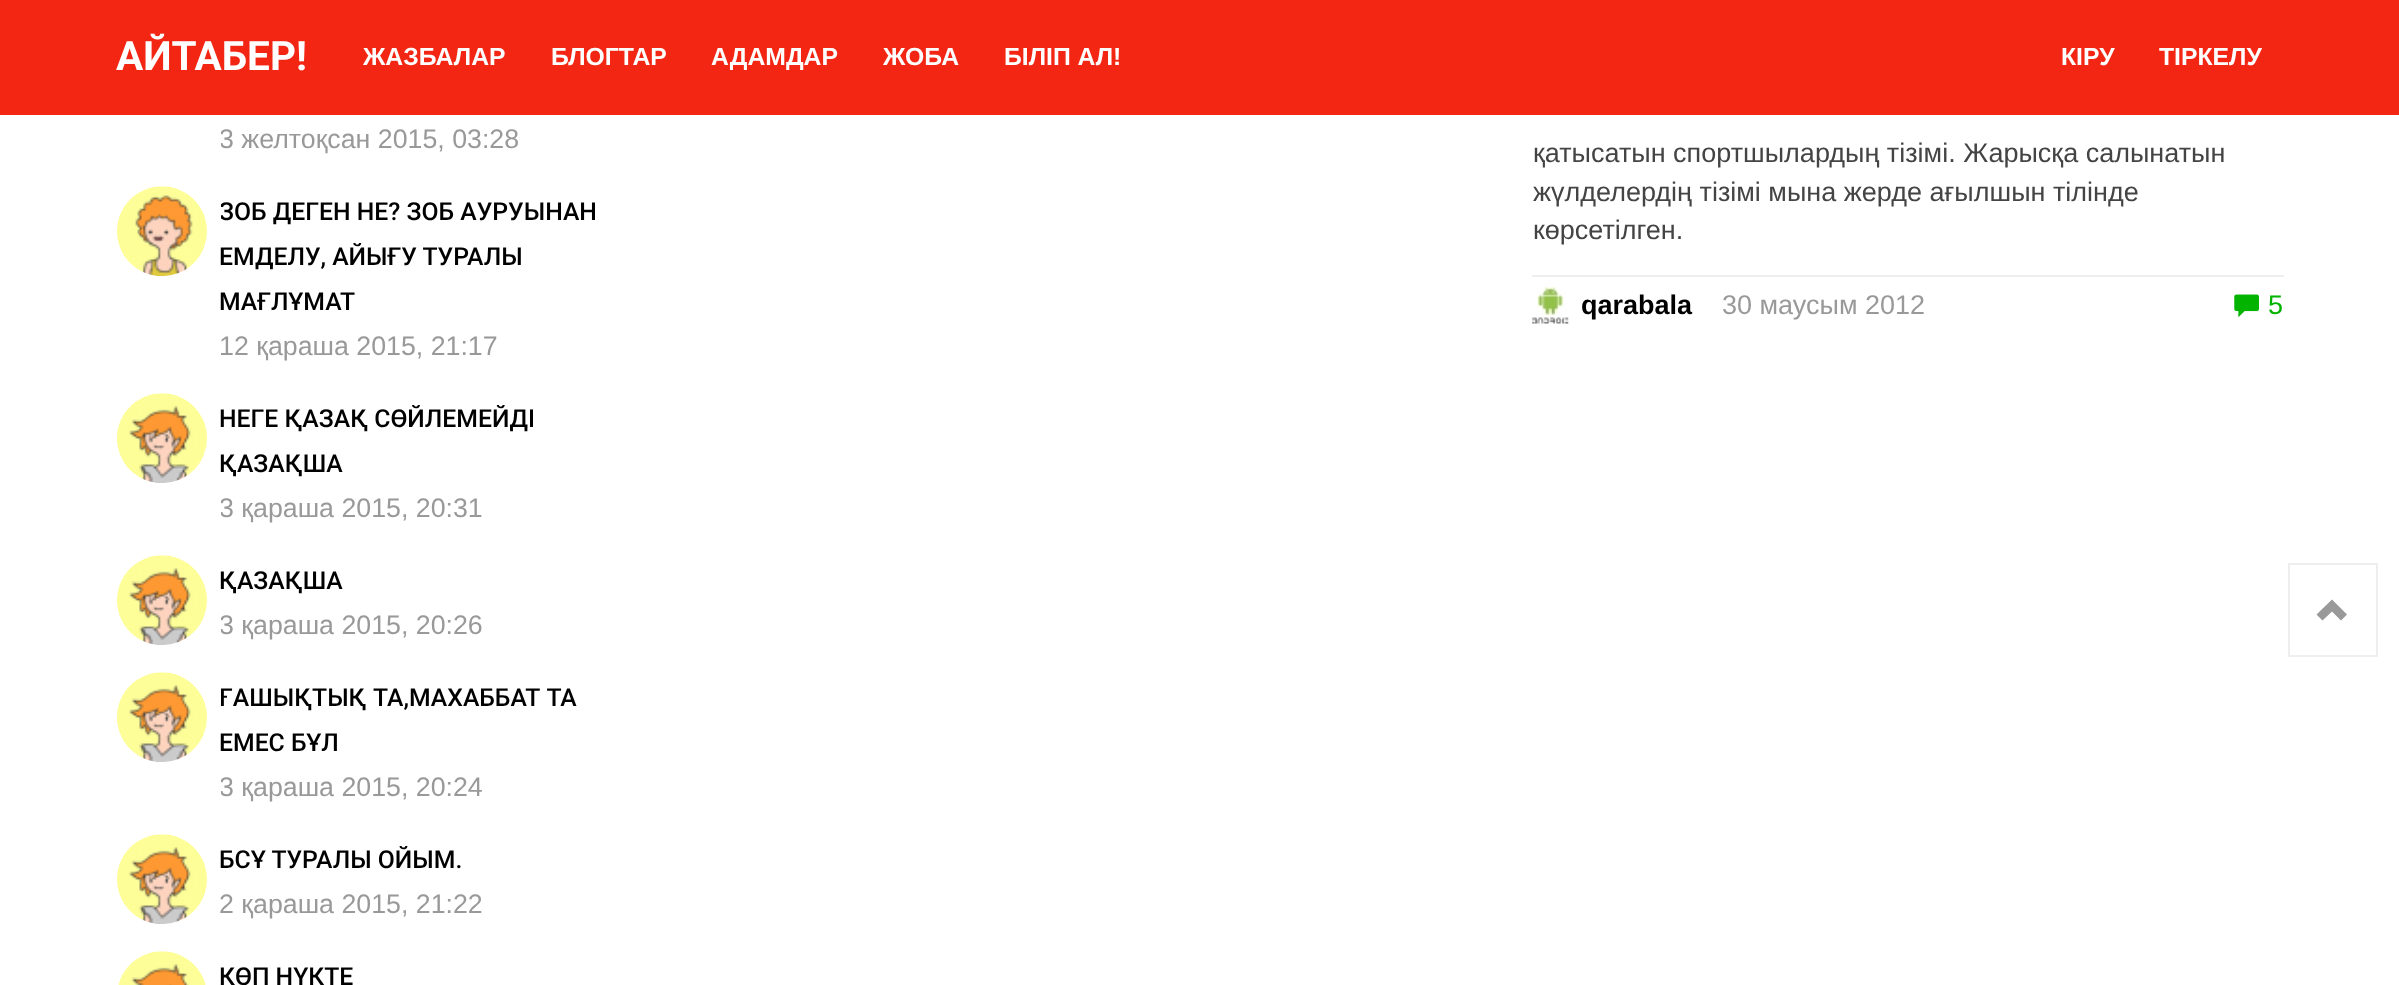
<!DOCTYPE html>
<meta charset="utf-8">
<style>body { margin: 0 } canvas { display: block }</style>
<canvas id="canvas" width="2399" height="985"></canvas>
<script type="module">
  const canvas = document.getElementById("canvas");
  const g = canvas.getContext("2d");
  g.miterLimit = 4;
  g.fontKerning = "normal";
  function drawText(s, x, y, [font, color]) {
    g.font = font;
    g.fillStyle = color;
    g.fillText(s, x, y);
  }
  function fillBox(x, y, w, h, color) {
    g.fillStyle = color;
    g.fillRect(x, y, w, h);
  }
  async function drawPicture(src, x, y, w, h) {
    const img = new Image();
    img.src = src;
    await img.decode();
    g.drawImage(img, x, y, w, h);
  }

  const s1 = ["bold 40.5px Roboto", "#FFFFFF"];
  const s2 = ["bold 24.75px Liberation Sans", "#FFFFFF"];
  const s3 = ["26.75px Liberation Sans", "#999999"];
  const s4 = ["500 24.75px Roboto", "#000000"];
  const s5 = ["27px Liberation Sans", "#444444"];
  const s6 = ["bold 27px Liberation Sans", "#000000"];
  const s7 = ["27px Liberation Sans", "#999999"];
  const s8 = ["27px Liberation Sans", "#02B400"];

  fillBox(0, 0, 2399, 985, "#FFFFFF");
  fillBox(0, 0, 2399, 115, "#F22613");
  drawText("АЙТАБЕР!", 116, 70, s1);
  drawText("ЖАЗБАЛАР", 363, 65, s2);
  drawText("БЛОГТАР", 551, 65, s2);
  drawText("АДАМДАР", 711, 65, s2);
  drawText("ЖОБА", 883, 65, s2);
  drawText("БІЛІП АЛ!", 1004, 65, s2);
  drawText("КІРУ", 2061, 65, s2);
  drawText("ТІРКЕЛУ", 2159, 65, s2);
  g.save();
  g.beginPath();
  g.rect(221, 25, 387, 135);
  g.clip();
  drawText("3 желтоқсан 2015, 03:28", 219, 148, s3);
  g.restore();
  await drawPicture("pic1.png", 117, 186, 90, 91);
  g.save();
  g.beginPath();
  g.rect(221, 187, 387, 180);
  g.clip();
  drawText("ЗОБ ДЕГЕН НЕ? ЗОБ АУРУЫНАН", 219, 220, s4);
  g.restore();
  drawText("ЕМДЕЛУ, АЙЫҒУ ТУРАЛЫ", 219, 265, s4);
  drawText("МАҒЛҰМАТ", 219, 310, s4);
  drawText("12 қараша 2015, 21:17", 219, 355, s3);
  await drawPicture("pic2.png", 117, 393, 90, 90);
  drawText("НЕГЕ ҚАЗАҚ СӨЙЛЕМЕЙДІ", 219, 427, s4);
  drawText("ҚАЗАҚША", 219, 472, s4);
  g.save();
  g.beginPath();
  g.rect(221, 394, 387, 135);
  g.clip();
  drawText("3 қараша 2015, 20:31", 219, 517, s3);
  g.restore();
  await drawPicture("pic3.png", 117, 555, 90, 90);
  drawText("ҚАЗАҚША", 219, 589, s4);
  g.save();
  g.beginPath();
  g.rect(221, 556, 387, 90);
  g.clip();
  drawText("3 қараша 2015, 20:26", 219, 634, s3);
  g.restore();
  await drawPicture("pic2.png", 117, 672, 90, 90);
  g.save();
  g.beginPath();
  g.rect(221, 673, 387, 135);
  g.clip();
  g.wordSpacing = "1px";
  drawText("ҒАШЫҚТЫҚ ТА,МАХАББАТ ТА", 219, 706, s4);
  g.restore();
  drawText("ЕМЕС БҰЛ", 219, 751, s4);
  g.save();
  g.beginPath();
  g.rect(221, 673, 387, 135);
  g.clip();
  drawText("3 қараша 2015, 20:24", 219, 796, s3);
  g.restore();
  await drawPicture("pic4.png", 117, 834, 90, 90);
  drawText("БСҰ ТУРАЛЫ ОЙЫМ.", 219, 868, s4);
  drawText("2 қараша 2015, 21:22", 219, 913, s3);
  await drawPicture("pic5.png", 118, 951, 88, 34);
  drawText("КӨП НҮКТЕ", 219, 985, s4);
  drawText("қатысатын спортшылардың тізімі. Жарысқа салынатын", 1533, 162, s5);
  drawText("жүлделердің тізімі мына жерде ағылшын тілінде", 1533, 201, s5);
  drawText("көрсетілген.", 1533, 239, s5);
  fillBox(1532, 275, 752, 2, "#EEEEEE");
  await drawPicture("pic6.png", 1532, 287, 37, 37);
  drawText("qarabala", 1581, 314, s6);
  drawText("30 маусым 2012", 1722, 314, s7);
  await drawPicture("pic7.png", 2234, 294, 25, 24);
  drawText("5", 2268, 314, s8);
  g.strokeStyle = "#EEEEEE";
  g.lineWidth = 2;
  g.strokeRect(2289, 564, 88, 92);
  g.fillStyle = "#999999";
  g.beginPath();
  g.moveTo(2316.5, 614.5);
  g.lineTo(2322.5, 620.5);
  g.lineTo(2332, 611.5);
  g.lineTo(2341, 620.5);
  g.lineTo(2347, 614.5);
  g.lineTo(2332, 599.5);
  g.closePath();
  g.fill();
</script>
